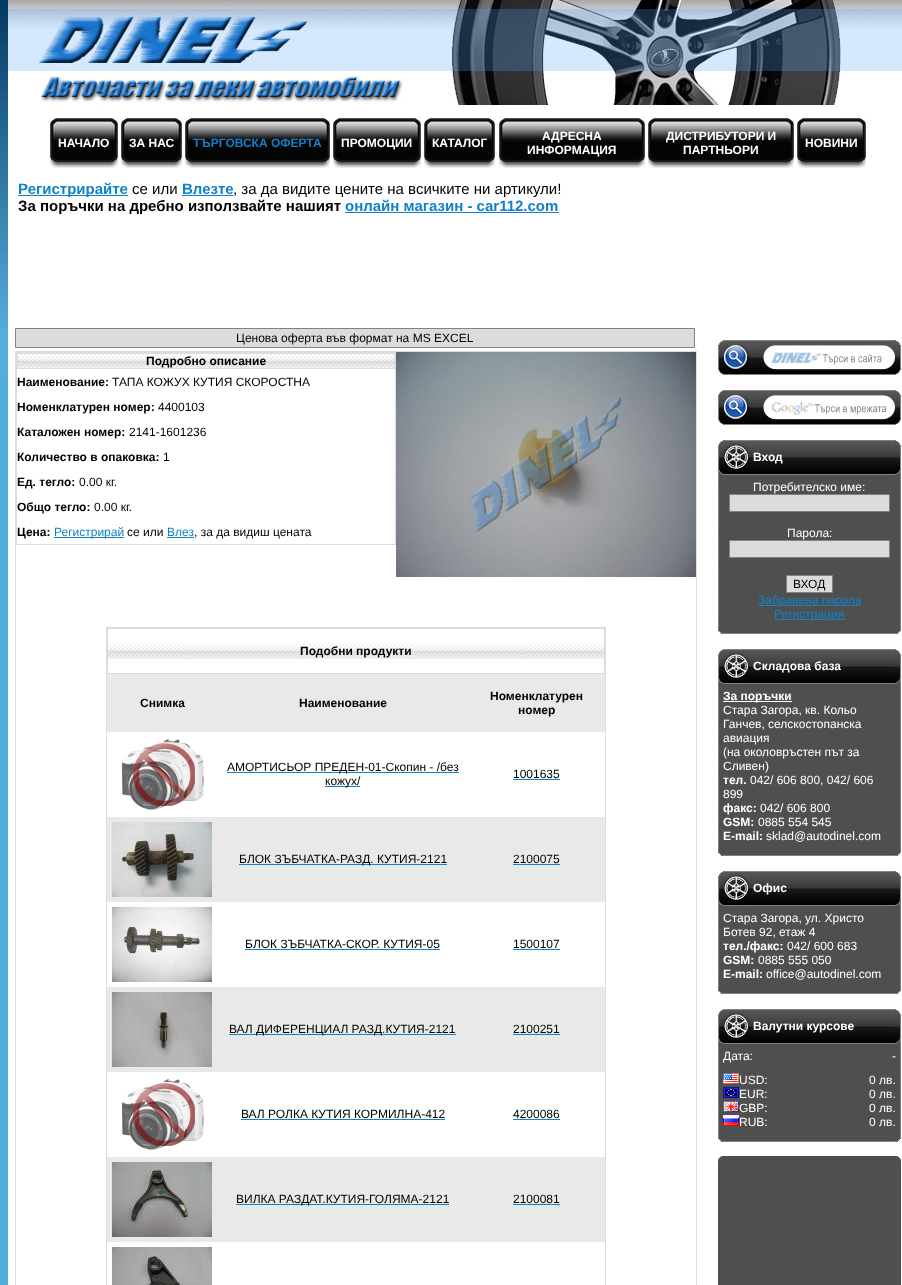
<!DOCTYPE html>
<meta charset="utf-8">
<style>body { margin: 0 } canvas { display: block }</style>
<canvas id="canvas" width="902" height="1285"></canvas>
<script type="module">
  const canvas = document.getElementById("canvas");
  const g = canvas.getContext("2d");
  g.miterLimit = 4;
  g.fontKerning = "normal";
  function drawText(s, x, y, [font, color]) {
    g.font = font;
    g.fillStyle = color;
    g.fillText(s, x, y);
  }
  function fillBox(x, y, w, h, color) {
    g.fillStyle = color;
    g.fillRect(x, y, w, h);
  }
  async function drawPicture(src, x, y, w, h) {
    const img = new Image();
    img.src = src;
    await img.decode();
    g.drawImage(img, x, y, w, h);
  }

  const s1 = ["bold 12px Liberation Sans", "#FFFFFF"];
  const s2 = ["bold 12px Liberation Sans", "#1281C9"];
  const s3 = ["bold 15px Liberation Sans", "#1281C9"];
  const s4 = ["15px Liberation Sans", "#000000"];
  const s5 = ["bold 15px Liberation Sans", "#000000"];
  const s6 = ["12px Liberation Sans", "#000000"];
  const s7 = ["bold 12px Liberation Sans", "#000000"];
  const s8 = ["12px Liberation Sans", "#1281C9"];
  const s9 = ["12px Liberation Sans", "#FFFFFF"];

  fillBox(0, 0, 902, 1285, "#4FADDC");
  await drawPicture("pic1.png", 0, 0, 8, 376);
  fillBox(8, 105, 894, 1180, "#FFFFFF");
  await drawPicture("pic2.png", 8, 0, 894, 105);
  await drawPicture("pic3.png", 58, 118, 52, 50);
  await drawPicture("pic4.png", 50, 118, 8, 50);
  drawText("НАЧАЛО", 58, 147, s1);
  await drawPicture("pic5.png", 110, 118, 8, 50);
  await drawPicture("pic6.png", 129, 118, 45, 50);
  await drawPicture("pic4.png", 121, 118, 8, 50);
  drawText("ЗА НАС", 129, 147, s1);
  await drawPicture("pic5.png", 174, 118, 8, 50);
  await drawPicture("pic7.png", 193, 118, 129, 50);
  await drawPicture("pic4.png", 185, 118, 8, 50);
  drawText("ТЪРГОВСКА ОФЕРТА", 193, 147, s2);
  await drawPicture("pic5.png", 322, 118, 8, 50);
  await drawPicture("pic8.png", 341, 118, 72, 50);
  await drawPicture("pic4.png", 333, 118, 8, 50);
  drawText("ПРОМОЦИИ", 341, 147, s1);
  await drawPicture("pic5.png", 413, 118, 8, 50);
  await drawPicture("pic9.png", 432, 118, 55, 50);
  await drawPicture("pic4.png", 424, 118, 8, 50);
  drawText("КАТАЛОГ", 432, 147, s1);
  await drawPicture("pic5.png", 487, 118, 8, 50);
  await drawPicture("pic10.png", 507, 118, 130, 50);
  await drawPicture("pic4.png", 499, 118, 8, 50);
  drawText("АДРЕСНА", 542, 140, s1);
  drawText("ИНФОРМАЦИЯ", 527, 154, s1);
  await drawPicture("pic5.png", 637, 118, 8, 50);
  await drawPicture("pic10.png", 656, 118, 130, 50);
  await drawPicture("pic4.png", 648, 118, 8, 50);
  drawText("ДИСТРИБУТОРИ И", 666, 140, s1);
  drawText("ПАРТНЬОРИ", 683, 154, s1);
  await drawPicture("pic5.png", 786, 118, 8, 50);
  await drawPicture("pic11.png", 805, 118, 53, 50);
  await drawPicture("pic4.png", 797, 118, 8, 50);
  drawText("НОВИНИ", 805, 147, s1);
  await drawPicture("pic5.png", 858, 118, 8, 50);
  fillBox(18, 195, 110, 1, "#1281C9");
  drawText("Регистрирайте", 18, 194, s3);
  drawText("се или", 132, 194, s4);
  drawText("Влезте", 182, 194, s3);
  drawText(", за да видите цените на всичките ни артикули!", 233, 194, s4);
  fillBox(182, 195, 51, 1, "#1281C9");
  drawText("За поръчки на дребно използвайте нашият", 18, 211, s5);
  drawText("онлайн магазин - car112.com", 345, 211, s3);
  fillBox(345, 212, 214, 1, "#1281C9");
  g.fillStyle = "#DCDCDC";
  g.beginPath();
  g.rect(15.5, 328.5, 679, 19);
  g.fill();
  g.strokeStyle = "#828282";
  g.stroke();
  drawText("Ценова оферта във формат на MS EXCEL", 236, 342, s6);
  g.strokeStyle = "#DCDCDC";
  g.strokeRect(15.5, 351.5, 681, 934);
  g.strokeRect(16.5, 352.5, 379, 192);
  await drawPicture("pic12.png", 18, 354, 376, 14);
  g.strokeRect(17.5, 353.5, 377, 15);
  drawText("Подробно описание", 146, 365, s7);
  drawText("Наименование:", 17, 386, s7);
  drawText("ТАПА КОЖУХ КУТИЯ СКОРОСТНА", 112, 386, s6);
  drawText("Номенклатурен номер:", 17, 411, s7);
  drawText("4400103", 158, 411, s6);
  drawText("Каталожен номер:", 17, 436, s7);
  drawText("2141-1601236", 129, 436, s6);
  drawText("Количество в опаковка:", 17, 461, s7);
  drawText("1", 163, 461, s6);
  drawText("Ед. тегло:", 17, 486, s7);
  drawText("0.00 кг.", 79, 486, s6);
  drawText("Общо тегло:", 17, 511, s7);
  drawText("0.00 кг.", 94, 511, s6);
  drawText("Цена:", 17, 536, s7);
  fillBox(54, 537, 70, 1, "#1281C9");
  drawText("Регистрирай", 54, 536, s8);
  drawText("се или", 127, 536, s6);
  drawText("Влез", 167, 536, s8);
  fillBox(167, 537, 27, 1, "#1281C9");
  drawText(", за да видиш цената", 194, 536, s6);
  await drawPicture("pic13.png", 396, 352, 300, 225);
  g.strokeRect(106.5, 627.5, 499, 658);
  await drawPicture("pic14.png", 108, 643, 496, 16);
  g.strokeRect(107.5, 628.5, 497, 45);
  drawText("Подобни продукти", 300, 655, s7);
  fillBox(107, 674, 498, 58, "#E9E9E9");
  drawText("Снимка", 140, 707, s7);
  drawText("Наименование", 299, 707, s7);
  drawText("Номенклатурен", 490, 700, s7);
  drawText("номер", 518, 714, s7);
  await drawPicture("pic15.png", 121, 738, 83, 73);
  fillBox(227, 772, 232, 1, "#1281C9");
  drawText("АМОРТИСЬОР ПРЕДЕН-01-Скопин - /без", 227, 771, s6);
  fillBox(325, 786, 35, 1, "#1281C9");
  drawText("кожух/", 325, 785, s6);
  drawText("1001635", 513, 778, s6);
  fillBox(513, 779, 47, 1, "#1281C9");
  fillBox(107, 817, 498, 85, "#E9E9E9");
  await drawPicture("pic16.png", 112, 822, 100, 75);
  fillBox(239, 864, 208, 1, "#1281C9");
  drawText("БЛОК ЗЪБЧАТКА-РАЗД. КУТИЯ-2121", 239, 863, s6);
  drawText("2100075", 513, 863, s6);
  fillBox(513, 864, 47, 1, "#1281C9");
  await drawPicture("pic17.png", 112, 907, 100, 75);
  drawText("БЛОК ЗЪБЧАТКА-СКОР. КУТИЯ-05", 245, 948, s6);
  fillBox(245, 949, 195, 1, "#1281C9");
  drawText("1500107", 513, 948, s6);
  fillBox(513, 949, 47, 1, "#1281C9");
  fillBox(107, 987, 498, 85, "#E9E9E9");
  await drawPicture("pic18.png", 112, 992, 100, 75);
  fillBox(229, 1034, 227, 1, "#1281C9");
  drawText("ВАЛ ДИФЕРЕНЦИАЛ РАЗД.КУТИЯ-2121", 229, 1033, s6);
  drawText("2100251", 513, 1033, s6);
  fillBox(513, 1034, 47, 1, "#1281C9");
  await drawPicture("pic15.png", 121, 1078, 83, 73);
  drawText("ВАЛ РОЛКА КУТИЯ КОРМИЛНА-412", 241, 1118, s6);
  fillBox(241, 1119, 204, 1, "#1281C9");
  drawText("4200086", 513, 1118, s6);
  fillBox(513, 1119, 47, 1, "#1281C9");
  fillBox(107, 1157, 498, 85, "#E9E9E9");
  await drawPicture("pic19.png", 112, 1162, 100, 75);
  fillBox(236, 1204, 213, 1, "#1281C9");
  drawText("ВИЛКА РАЗДАТ.КУТИЯ-ГОЛЯМА-2121", 236, 1203, s6);
  drawText("2100081", 513, 1203, s6);
  fillBox(513, 1204, 47, 1, "#1281C9");
  await drawPicture("pic20.png", 112, 1247, 100, 38);
  await drawPicture("pic21.png", 718, 340, 183, 35);
  await drawPicture("pic22.png", 718, 390, 183, 35);
  await drawPicture("pic23.png", 718, 475, 183, 151);
  await drawPicture("pic24.png", 718, 440, 183, 35);
  drawText("Вход", 753, 461, s1);
  drawText("Потребителско име:", 753, 491, s9);
  g.fillStyle = "#DCDCDC";
  g.beginPath();
  g.rect(729.5, 494.5, 160, 17);
  g.fill();
  g.strokeStyle = "#828282";
  g.stroke();
  drawText("Парола:", 787, 537, s9);
  g.fillStyle = "#DCDCDC";
  g.beginPath();
  g.rect(729.5, 540.5, 160, 17);
  g.fill();
  g.stroke();
  g.beginPath();
  g.rect(786.5, 575.5, 46, 17);
  g.fill();
  g.stroke();
  drawText("ВХОД", 793, 588, s6);
  fillBox(758, 605, 103, 1, "#1281C9");
  drawText("Забравена парола", 758, 604, s8);
  fillBox(774, 619, 71, 1, "#1281C9");
  drawText("Регистрация", 774, 618, s8);
  await drawPicture("pic25.png", 718, 626, 183, 8);
  await drawPicture("pic26.png", 718, 684, 183, 164);
  await drawPicture("pic24.png", 718, 649, 183, 35);
  drawText("Складова база", 753, 670, s1);
  fillBox(723, 701, 69, 1, "#FFFFFF");
  drawText("За поръчки", 723, 700, s1);
  drawText("Стара Загора, кв. Кольо", 723, 714, s9);
  drawText("Ганчев, селскостопанска", 723, 728, s9);
  drawText("авиация", 723, 742, s9);
  drawText("(на околовръстен път за", 723, 756, s9);
  drawText("Сливен)", 723, 770, s9);
  drawText("тел.", 723, 784, s1);
  drawText("042/ 606 800, 042/ 606", 750, 784, s9);
  drawText("899", 723, 798, s9);
  drawText("факс:", 723, 812, s1);
  drawText("042/ 606 800", 760, 812, s9);
  drawText("GSM:", 723, 826, s1);
  drawText("0885 554 545", 758, 826, s9);
  drawText("E-mail:", 723, 840, s1);
  drawText("sklad@autodinel.com", 766, 840, s9);
  await drawPicture("pic25.png", 718, 848, 183, 8);
  await drawPicture("pic27.png", 718, 906, 183, 80);
  await drawPicture("pic24.png", 718, 871, 183, 35);
  drawText("Офис", 753, 892, s1);
  drawText("Стара Загора, ул. Христо", 723, 922, s9);
  drawText("Ботев 92, етаж 4", 723, 936, s9);
  drawText("тел./факс:", 723, 950, s1);
  drawText("042/ 600 683", 787, 950, s9);
  drawText("GSM:", 723, 964, s1);
  drawText("0885 555 050", 758, 964, s9);
  drawText("E-mail:", 723, 978, s1);
  drawText("office@autodinel.com", 766, 978, s9);
  await drawPicture("pic25.png", 718, 986, 183, 8);
  await drawPicture("pic28.png", 718, 1044, 183, 90);
  await drawPicture("pic24.png", 718, 1009, 183, 35);
  drawText("Валутни курсове", 753, 1030, s1);
  drawText("Дата:", 723, 1060, s9);
  drawText("-", 892, 1060, s9);
  await drawPicture("pic29.png", 723, 1073, 16, 11);
  drawText("USD:", 739, 1084, s9);
  drawText("0 лв.", 869, 1084, s9);
  await drawPicture("pic30.png", 723, 1087, 16, 11);
  drawText("EUR:", 739, 1098, s9);
  drawText("0 лв.", 869, 1098, s9);
  await drawPicture("pic31.png", 723, 1101, 16, 11);
  drawText("GBP:", 739, 1112, s9);
  drawText("0 лв.", 869, 1112, s9);
  await drawPicture("pic32.png", 723, 1115, 16, 11);
  drawText("RUB:", 739, 1126, s9);
  drawText("0 лв.", 869, 1126, s9);
  await drawPicture("pic25.png", 718, 1134, 183, 8);
  await drawPicture("pic33.png", 718, 1156, 183, 129);
</script>
